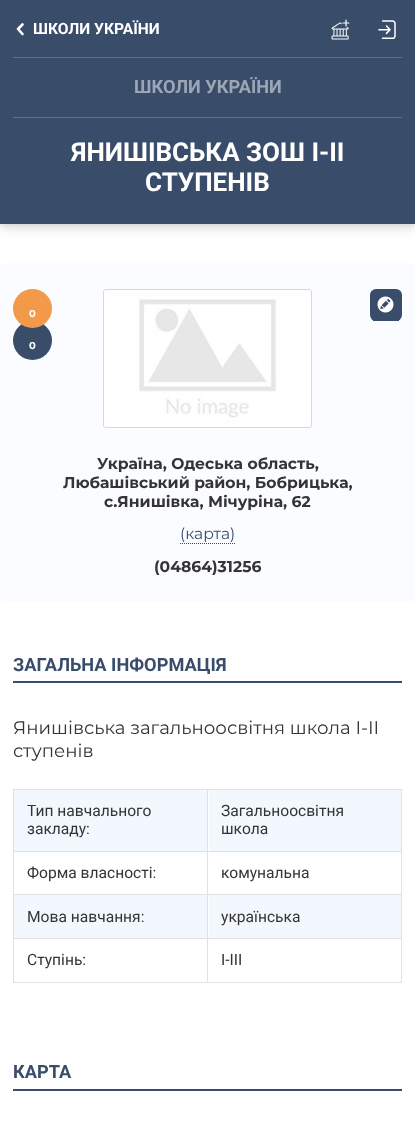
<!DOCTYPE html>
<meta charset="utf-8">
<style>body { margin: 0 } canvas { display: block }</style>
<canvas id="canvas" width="415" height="1125"></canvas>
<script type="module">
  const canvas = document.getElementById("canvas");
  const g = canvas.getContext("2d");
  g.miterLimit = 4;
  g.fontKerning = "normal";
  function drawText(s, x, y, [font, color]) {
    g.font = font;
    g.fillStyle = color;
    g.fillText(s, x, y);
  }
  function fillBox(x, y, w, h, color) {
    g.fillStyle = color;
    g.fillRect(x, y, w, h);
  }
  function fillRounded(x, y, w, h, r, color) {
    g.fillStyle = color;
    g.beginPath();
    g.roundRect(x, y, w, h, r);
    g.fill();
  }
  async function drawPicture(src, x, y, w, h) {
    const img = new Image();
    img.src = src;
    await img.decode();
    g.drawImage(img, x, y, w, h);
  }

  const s1 = ["bold 15.6px Roboto", "#FFFFFF"];
  const s2 = ["bold 18.2px Roboto", "#9CA6B5"];
  const s3 = ["bold 26px Roboto", "#FFFFFF"];
  const s4 = ["bold 10px Montserrat", "#FFFFFF"];
  const s5 = ["bold 15.6px Montserrat", "#343434"];
  const s6 = ["15.6px Montserrat", "#394D6B"];
  const s7 = ["bold 18.2px Roboto", "#394D6B"];
  const s8 = ["18.2px Montserrat", "#343434"];
  const s9 = ["15.6px Roboto", "#343434"];

  fillBox(0, 0, 415, 1125, "#FFFFFF");
  g.fillStyle = "rgba(0, 0, 0, 0.05)";
  g.filter = "blur(5px)";
  g.beginPath();
  g.rect(2, 4, 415, 224);
  g.fill();
  g.filter = "none";
  g.fillStyle = "rgba(0, 0, 0, 0.07)";
  g.filter = "blur(2.5px)";
  g.beginPath();
  g.rect(0, 2, 415, 224);
  g.fill();
  g.filter = "none";
  g.filter = "blur(7.5px)";
  g.beginPath();
  g.rect(0, 4, 415, 224);
  g.fill();
  g.filter = "none";
  fillBox(0, 0, 415, 224, "#394D6B");
  fillBox(13, 57, 389, 1, "#617189");
  g.beginPath();
  g.moveTo(22.5, 24.5);
  g.lineTo(18, 29);
  g.lineTo(22.5, 34);
  g.strokeStyle = "#FFFFFF";
  g.lineWidth = 2.6;
  g.lineCap = "round";
  g.lineJoin = "round";
  g.stroke();
  drawText("ШКОЛИ УКРАЇНИ", 33, 34, s1);
  await drawPicture("pic1.png", 331, 19, 19, 21);
  await drawPicture("pic2.png", 378, 20, 18, 19);
  drawText("ШКОЛИ УКРАЇНИ", 134, 93, s2);
  fillBox(13, 117, 389, 1, "#617189");
  drawText("ЯНИШІВСЬКА ЗОШ І-ІІ", 71, 161, s3);
  drawText("СТУПЕНІВ", 145, 191, s3);
  fillRounded(0, 263, 415, 339, 5, "#FAFCFF");
  fillRounded(370, 289, 32, 32, 6, "#394D6B");
  fillBox(373, 320, 26, 1, "#394D6B");
  await drawPicture("pic3.png", 377, 296, 17, 17);
  g.beginPath();
  g.arc(32.5, 340.5, 19.5, 0, Math.PI * 2);
  g.fill();
  g.fillStyle = "#F2994A";
  g.beginPath();
  g.arc(32.5, 308.5, 19.5, 0, Math.PI * 2);
  g.fill();
  drawText("0", 29, 317, s4);
  drawText("0", 29, 349, s4);
  g.beginPath();
  g.roundRect(103.5, 289.5, 208, 138, 2.5);
  g.strokeStyle = "#D3D9E1";
  g.lineWidth = 1;
  g.lineJoin = "miter";
  g.stroke();
  await drawPicture("pic4.png", 104, 290, 207, 137);
  drawText("Україна, Одеська область,", 97, 469, s5);
  drawText("Любашівський район, Бобрицька,", 63, 488, s5);
  drawText("с.Янишівка, Мічуріна, 62", 104, 507, s5);
  g.beginPath();
  g.moveTo(180, 543.5);
  g.lineTo(235, 543.5);
  g.strokeStyle = "#394D6B";
  g.lineCap = "butt";
  g.setLineDash([1, 1]);
  g.stroke();
  drawText("(карта)", 180, 539, s6);
  drawText("(04864)31256", 154, 572, s5);
  drawText("ЗАГАЛЬНА ІНФОРМАЦІЯ", 13, 671, s7);
  fillBox(13, 681, 389, 2, "#394D6B");
  drawText("Янишівська загальноосвітня школа І-ІІ", 13, 734, s8);
  drawText("ступенів", 13, 757, s8);
  fillBox(13, 789, 389, 1, "#DEE2E6");
  fillBox(14, 790, 193, 61, "#F3F8FF");
  drawText("Тип навчального", 27, 816, s9);
  drawText("закладу:", 27, 834, s9);
  fillBox(209, 790, 192, 61, "#F3F8FF");
  drawText("Загальноосвітня", 221, 816, s9);
  drawText("школа", 221, 834, s9);
  fillBox(13, 851, 389, 1, "#DEE2E6");
  drawText("Форма власності:", 27, 878, s9);
  drawText("комунальна", 221, 878, s9);
  fillBox(13, 894, 389, 1, "#DEE2E6");
  fillBox(14, 895, 193, 43, "#F3F8FF");
  drawText("Мова навчання:", 27, 922, s9);
  fillBox(209, 895, 192, 43, "#F3F8FF");
  drawText("українська", 221, 922, s9);
  fillBox(13, 938, 389, 1, "#DEE2E6");
  fillBox(13, 982, 389, 1, "#DEE2E6");
  fillBox(13, 789, 1, 194, "#DEE2E6");
  drawText("Ступінь:", 27, 965, s9);
  fillBox(401, 789, 1, 194, "#DEE2E6");
  fillBox(207, 789, 1, 194, "#DEE2E6");
  drawText("I-III", 221, 965, s9);
  drawText("КАРТА", 13, 1078, s7);
  fillBox(13, 1089, 389, 2, "#394D6B");
</script>
